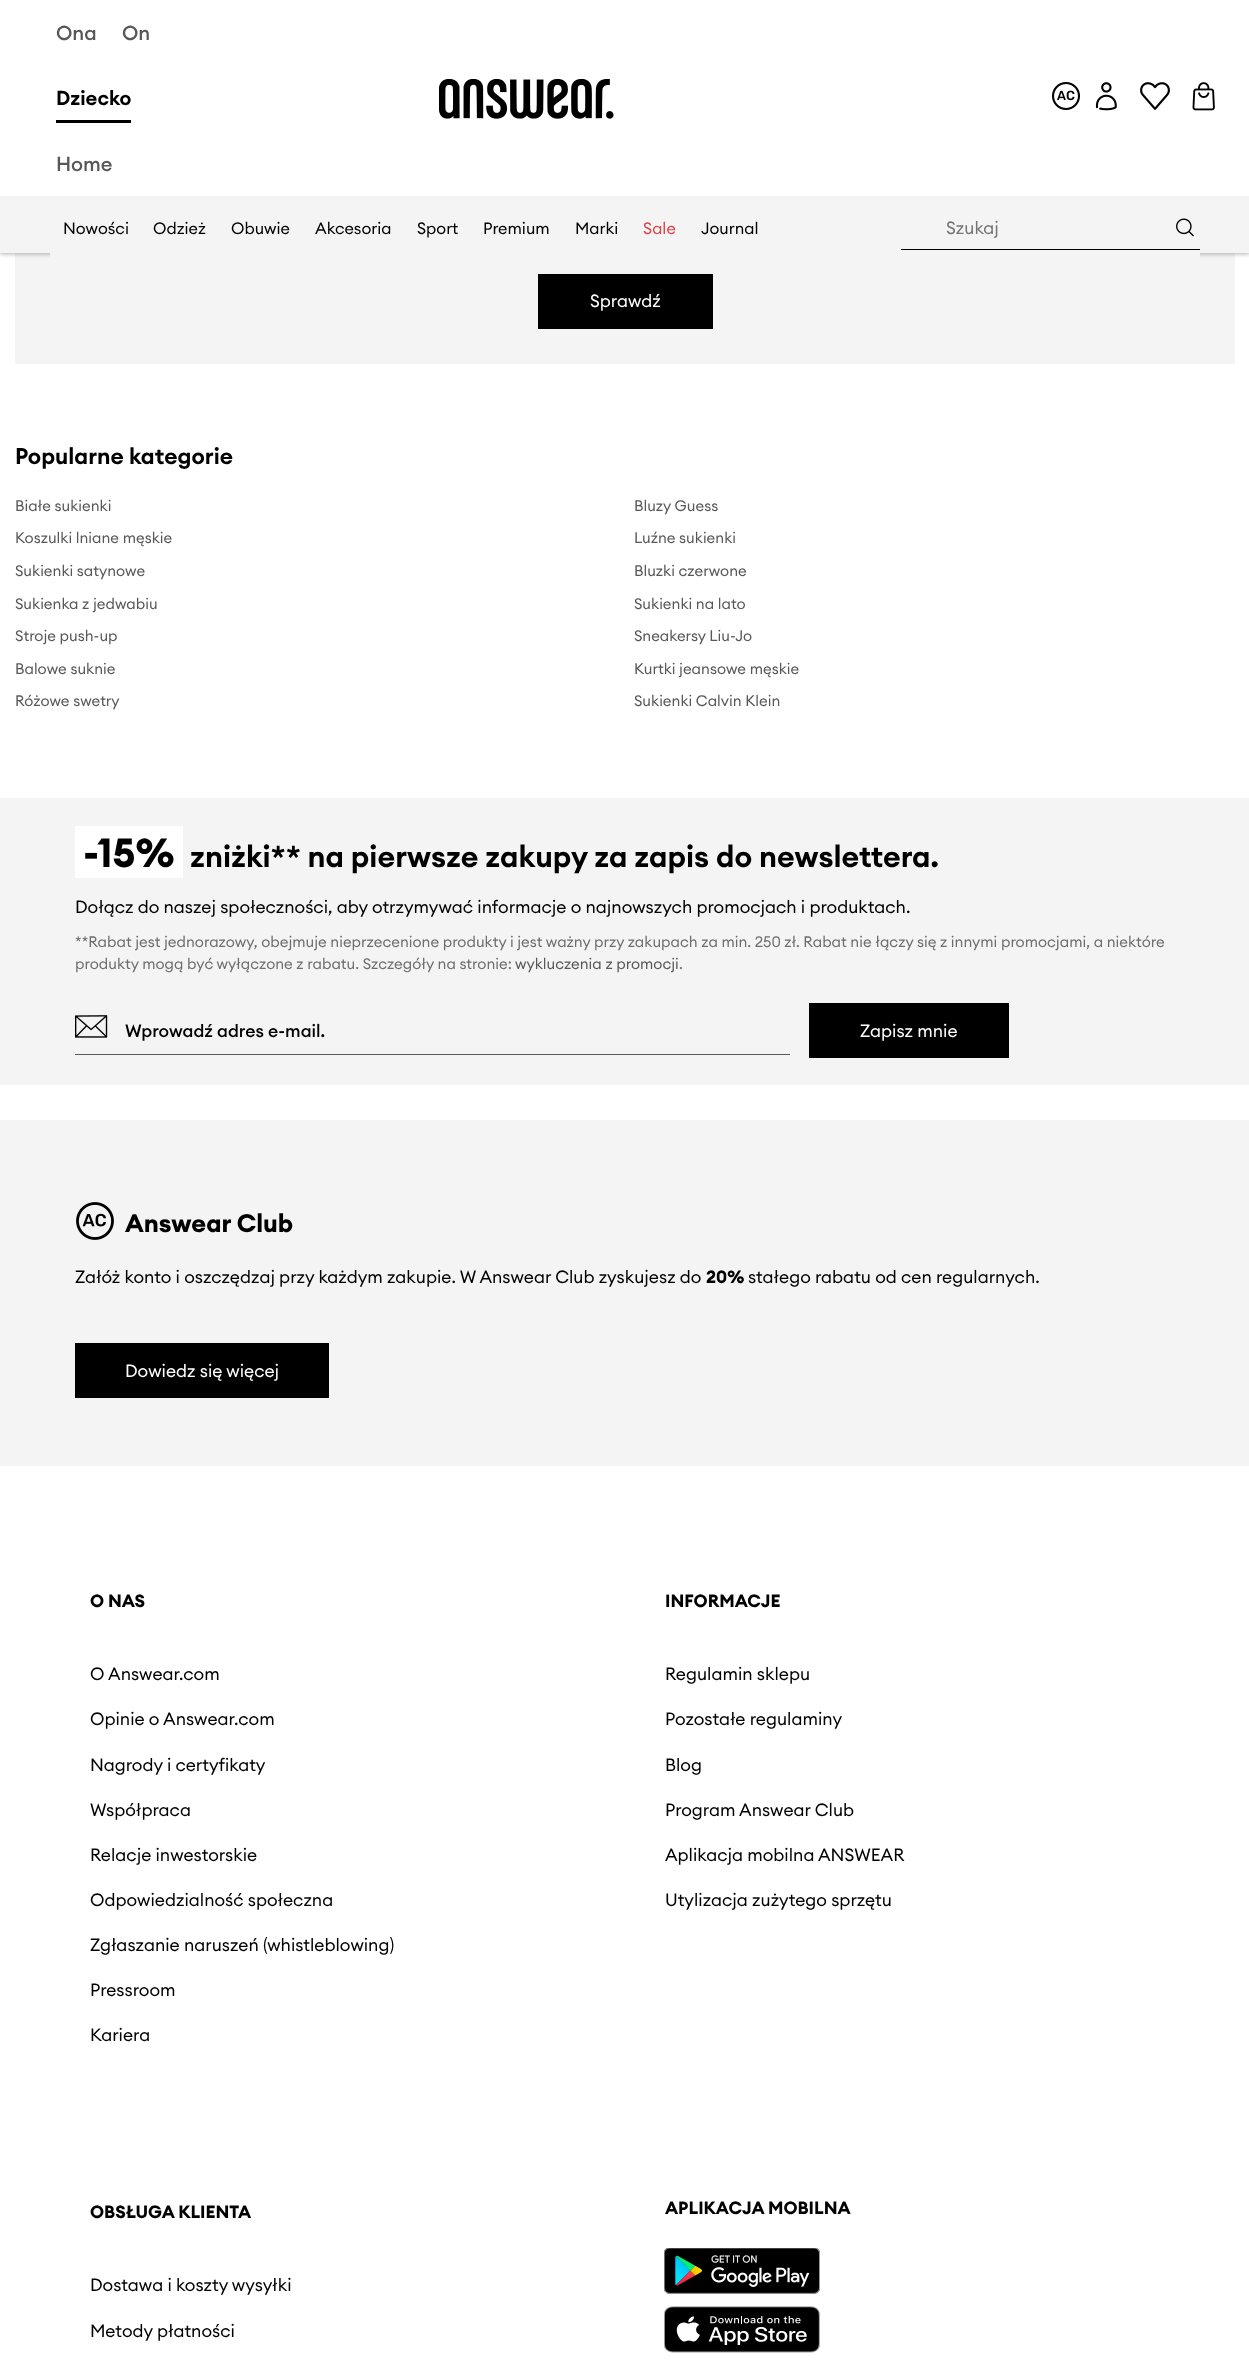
<!DOCTYPE html>
<meta charset="utf-8">
<style>body { margin: 0 } canvas { display: block }</style>
<canvas id="canvas" width="1249" height="2371"></canvas>
<script type="module">
  const canvas = document.getElementById("canvas");
  const g = canvas.getContext("2d");
  g.miterLimit = 4;
  g.fontKerning = "normal";
  function drawText(s, x, y, [font, color]) {
    g.font = font;
    g.fillStyle = color;
    g.fillText(s, x, y);
  }
  function fillBox(x, y, w, h, color) {
    g.fillStyle = color;
    g.fillRect(x, y, w, h);
  }
  async function drawPicture(src, x, y, w, h) {
    const img = new Image();
    img.src = src;
    await img.decode();
    g.drawImage(img, x, y, w, h);
  }

  const s1 = ["500 20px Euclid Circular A", "#585858"];
  const s2 = ["600 20px Euclid Circular A", "#000000"];
  const s3 = ["16.25px Euclid Circular A", "#000000"];
  const s4 = ["16.25px Euclid Circular A", "#DA4448"];
  const s5 = ["17.5px Euclid Circular A", "#757575"];
  const s6 = ["17.5px Euclid Circular A", "#FFFFFF"];
  const s7 = ["600 22.5px Euclid Circular A", "#000000"];
  const s8 = ["15px Euclid Circular A", "#585858"];
  const s9 = ["bold 40px Euclid Circular A", "#000000"];
  const s10 = ["600 30px Euclid Circular A", "#000000"];
  const s11 = ["17.5px Euclid Circular A", "#000000"];
  const s12 = ["15px Euclid Circular A", "#6E6E6E"];
  const s13 = ["500 17.5px Euclid Circular A", "#000000"];
  const s14 = ["bold 25px Euclid Circular A", "#000000"];
  const s15 = ["bold 17.5px Euclid Circular A", "#000000"];

  fillBox(0, 0, 1249, 2371, "#FFFFFF");
  fillBox(15, 253, 1220, 111, "#F4F4F4");
  g.fillStyle = "rgba(0, 0, 0, 0.3)";
  g.filter = "blur(2px)";
  g.beginPath();
  g.rect(0, 1, 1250, 253);
  g.fill();
  g.filter = "none";
  fillBox(0, 0, 1249, 196, "#FFFFFF");
  drawText("Ona", 56, 40, s1);
  drawText("On", 122, 40, s1);
  drawText("Dziecko", 56, 105, s2);
  fillBox(56, 120, 75, 3, "#000000");
  drawText("Home", 56, 171, s1);
  await drawPicture("pic1.png", 439, 79, 175, 40);
  await drawPicture("pic2.png", 1052, 82, 28, 28);
  await drawPicture("pic3.png", 1095, 82, 22, 29);
  await drawPicture("pic4.png", 1140, 82, 30, 28);
  await drawPicture("pic5.png", 1192, 82, 23, 29);
  fillBox(0, 196, 1249, 57, "#F4F4F4");
  fillBox(50, 253, 1150, 5, "#F4F4F4");
  drawText("Nowości", 63, 234, s3);
  drawText("Odzież", 153, 234, s3);
  drawText("Obuwie", 231, 234, s3);
  drawText("Akcesoria", 315, 234, s3);
  drawText("Sport", 417, 234, s3);
  drawText("Premium", 483, 234, s3);
  drawText("Marki", 575, 234, s3);
  drawText("Sale", 643, 234, s4);
  drawText("Journal", 701, 234, s3);
  fillBox(901, 249, 299, 1, "#000000");
  drawText("Szukaj", 946, 234, s5);
  await drawPicture("pic6.png", 1176, 218, 18, 19);
  fillBox(538, 274, 175, 55, "#000000");
  drawText("Sprawdź", 590, 307, s6);
  drawText("Popularne kategorie", 15, 464, s7);
  drawText("Białe sukienki", 15, 511, s8);
  drawText("Bluzy Guess", 634, 511, s8);
  drawText("Koszulki lniane męskie", 15, 543, s8);
  drawText("Luźne sukienki", 634, 543, s8);
  drawText("Sukienki satynowe", 15, 576, s8);
  drawText("Bluzki czerwone", 634, 576, s8);
  drawText("Sukienka z jedwabiu", 15, 609, s8);
  drawText("Sukienki na lato", 634, 609, s8);
  drawText("Stroje push-up", 15, 641, s8);
  drawText("Sneakersy Liu-Jo", 634, 641, s8);
  drawText("Balowe suknie", 15, 674, s8);
  drawText("Kurtki jeansowe męskie", 634, 674, s8);
  drawText("Różowe swetry", 15, 706, s8);
  drawText("Sukienki Calvin Klein", 634, 706, s8);
  fillBox(0, 798, 1249, 287, "#F4F4F4");
  fillBox(75, 826, 108, 52, "#FFFFFF");
  drawText("-15%", 83, 867, s9);
  drawText("zniżki** na pierwsze zakupy za zapis do newslettera.", 190, 867, s10);
  drawText("Dołącz do naszej społeczności, aby otrzymywać informacje o najnowszych promocjach i produktach.", 75, 913, s11);
  drawText("**Rabat jest jednorazowy, obejmuje nieprzecenione produkty i jest ważny przy zakupach za min. 250 zł. Rabat nie łączy się z innymi promocjami, a niektóre", 75, 947, s12);
  drawText("produkty mogą być wyłączone z rabatu. Szczegóły na stronie:", 75, 969, s12);
  drawText("wykluczenia z promocji", 515, 969, s8);
  drawText(".", 679, 969, s12);
  await drawPicture("pic7.png", 75, 1015, 33, 23);
  fillBox(75, 1054, 715, 1, "#585858");
  drawText("Wprowadź adres e-mail.", 125, 1037, s13);
  fillBox(809, 1003, 200, 55, "#000000");
  drawText("Zapisz mnie", 860, 1037, s6);
  fillBox(0, 1120, 1249, 346, "#F4F4F4");
  await drawPicture("pic8.png", 76, 1202, 38, 38);
  drawText("Answear Club", 125, 1232, s14);
  drawText("Załóż konto i oszczędzaj przy każdym zakupie. W Answear Club zyskujesz do", 75, 1283, s11);
  drawText("20%", 706, 1283, s15);
  drawText("stałego rabatu od cen regularnych.", 748, 1283, s11);
  fillBox(75, 1343, 254, 55, "#000000");
  drawText("Dowiedz się więcej", 125, 1377, s6);
  drawText("O NAS", 90, 1607, s15);
  drawText("O Answear.com", 90, 1680, s11);
  drawText("Opinie o Answear.com", 90, 1725, s11);
  drawText("Nagrody i certyfikaty", 90, 1771, s11);
  drawText("Współpraca", 90, 1816, s11);
  drawText("Relacje inwestorskie", 90, 1861, s11);
  drawText("Odpowiedzialność społeczna", 90, 1906, s11);
  drawText("Zgłaszanie naruszeń (whistleblowing)", 90, 1951, s11);
  drawText("Pressroom", 90, 1996, s11);
  drawText("Kariera", 90, 2041, s11);
  drawText("INFORMACJE", 665, 1607, s15);
  drawText("Regulamin sklepu", 665, 1680, s11);
  drawText("Pozostałe regulaminy", 665, 1725, s11);
  drawText("Blog", 665, 1771, s11);
  drawText("Program Answear Club", 665, 1816, s11);
  drawText("Aplikacja mobilna ANSWEAR", 665, 1861, s11);
  drawText("Utylizacja zużytego sprzętu", 665, 1906, s11);
  drawText("OBSŁUGA KLIENTA", 90, 2218, s15);
  drawText("Dostawa i koszty wysyłki", 90, 2291, s11);
  drawText("Metody płatności", 90, 2337, s11);
  drawText("APLIKACJA MOBILNA", 665, 2214, s15);
  await drawPicture("pic9.png", 664, 2248, 156, 46);
  await drawPicture("pic10.png", 664, 2306, 156, 47);
</script>
